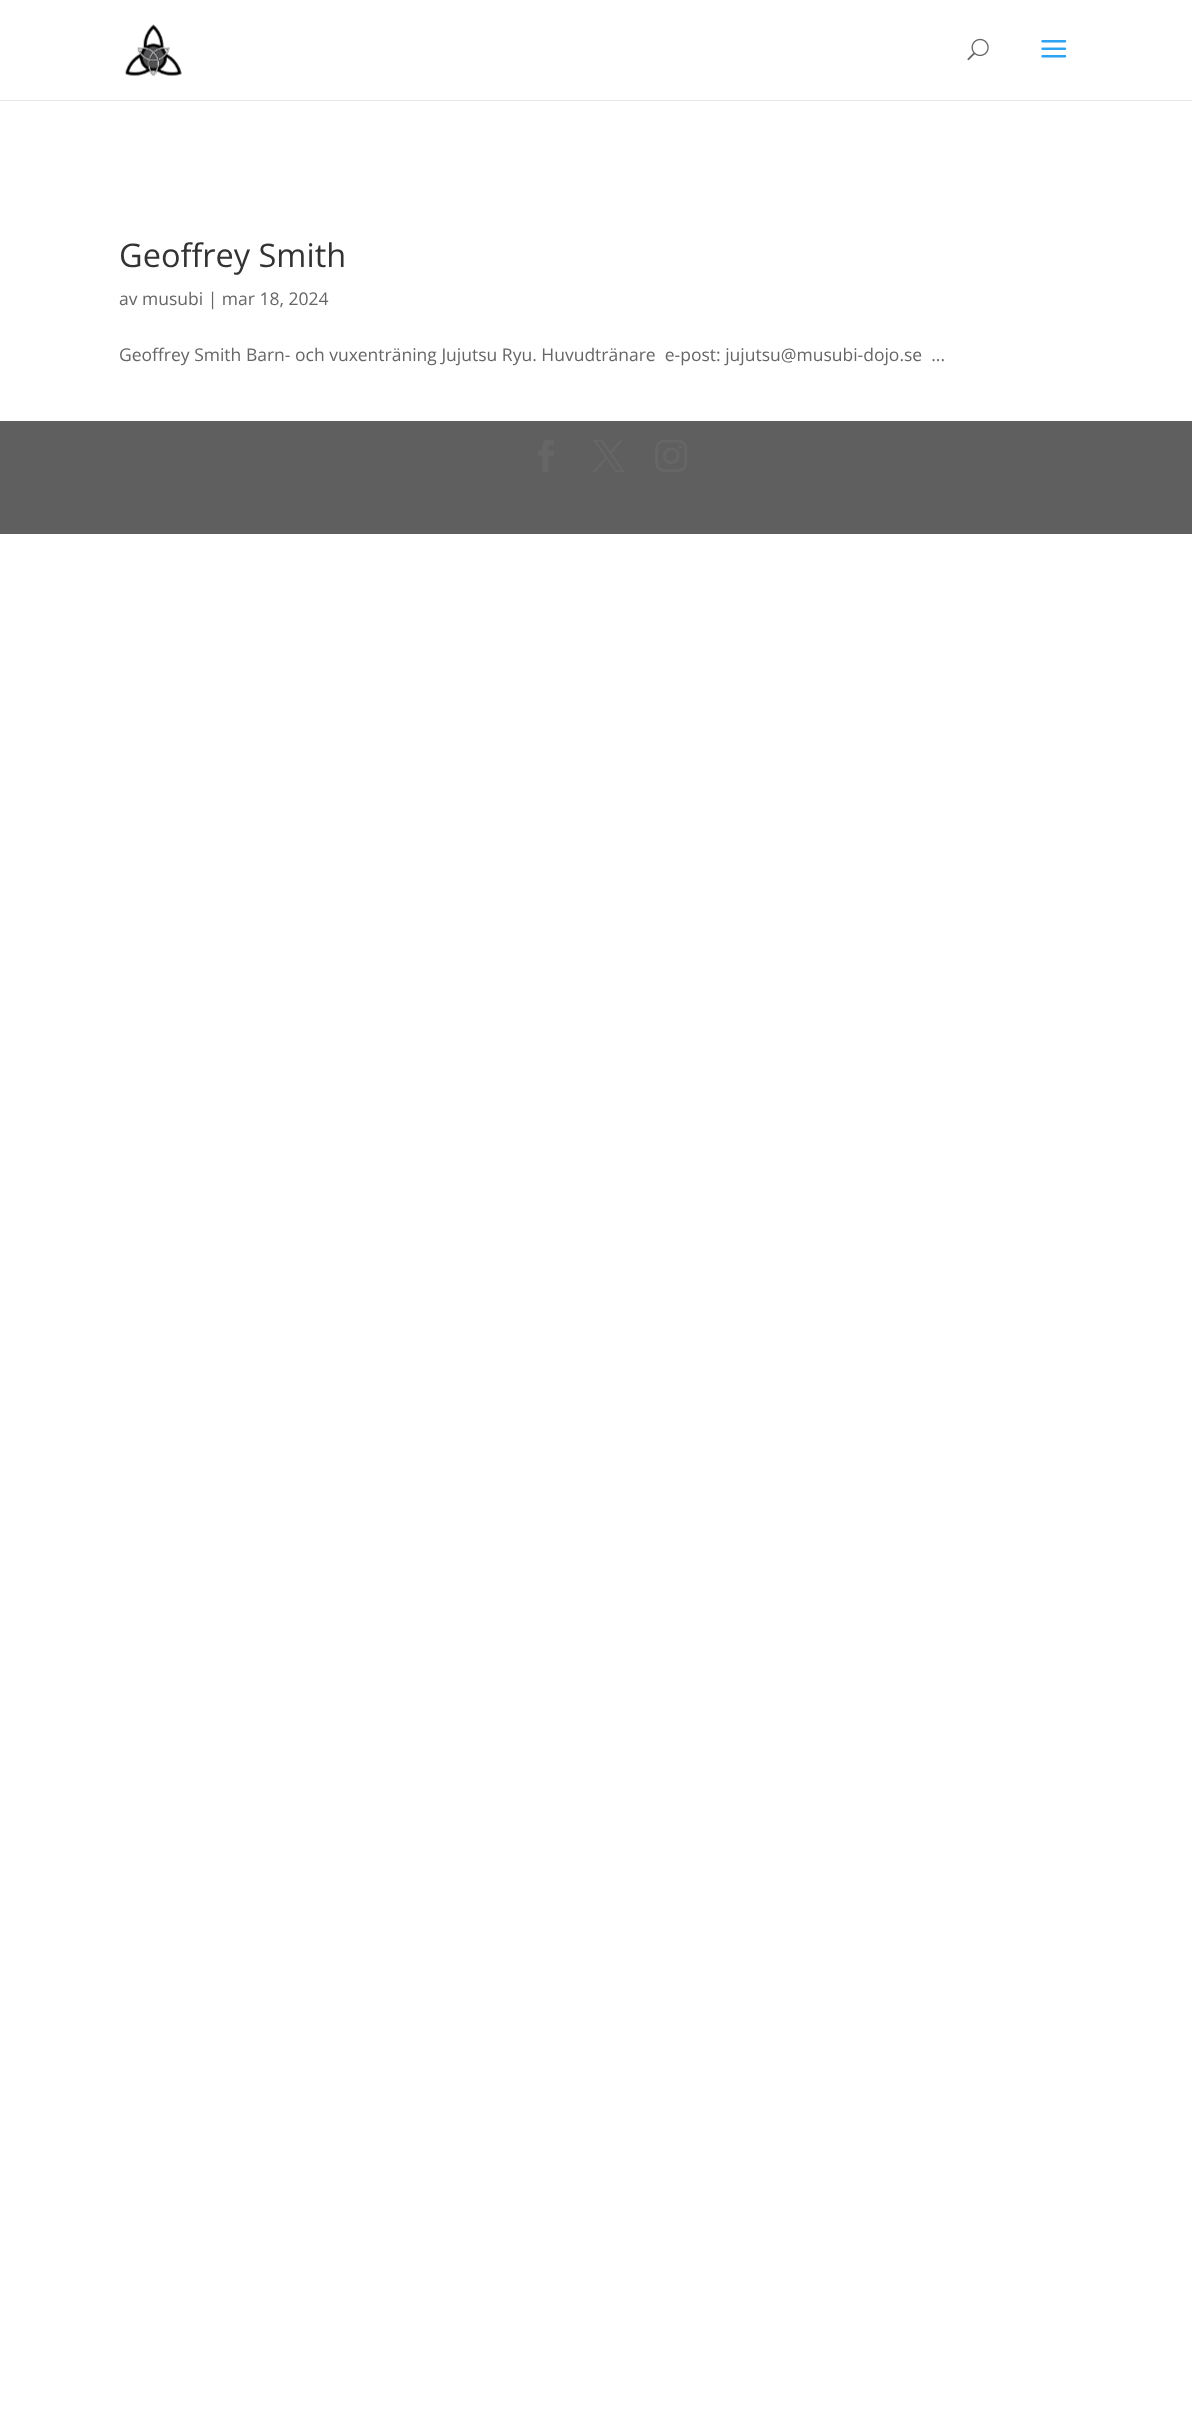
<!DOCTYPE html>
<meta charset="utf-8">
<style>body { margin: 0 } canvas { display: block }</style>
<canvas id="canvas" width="1192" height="2419"></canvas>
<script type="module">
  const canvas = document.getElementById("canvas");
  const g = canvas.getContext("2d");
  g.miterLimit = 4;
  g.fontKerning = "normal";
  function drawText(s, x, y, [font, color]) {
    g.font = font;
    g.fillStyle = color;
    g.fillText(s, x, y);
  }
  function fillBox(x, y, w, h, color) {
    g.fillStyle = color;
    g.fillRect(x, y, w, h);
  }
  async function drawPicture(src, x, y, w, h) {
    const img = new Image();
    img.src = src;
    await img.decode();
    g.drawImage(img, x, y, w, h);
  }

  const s1 = ["32.5px Open Sans", "#333333"];
  const s2 = ["17.5px Open Sans", "#666666"];

  fillBox(0, 0, 1192, 2419, "#FFFFFF");
  g.fillStyle = "#E6E6E6";
  g.beginPath();
  g.moveTo(0, 100);
  g.lineTo(0, 101);
  g.lineTo(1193, 101);
  g.lineTo(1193, 1);
  g.lineTo(1192, 1);
  g.lineTo(1192, 100);
  g.closePath();
  g.fill();
  await drawPicture("pic1.png", 125, 24, 57, 52);
  await drawPicture("pic2.png", 967, 38, 22, 23);
  await drawPicture("pic3.png", 1041, 40, 26, 18);
  drawText("Geoffrey Smith", 119, 267, s1);
  drawText("av musubi | mar 18, 2024", 119, 305, s2);
  drawText("Geoffrey Smith Barn- och vuxenträning Jujutsu Ryu. Huvudtränare  e-post: jujutsu@musubi-dojo.se  ...", 119, 361, s2);
  fillBox(0, 421, 1192, 113, "#5F5F5F");
  await drawPicture("pic4.png", 538, 440, 16, 32);
  await drawPicture("pic5.png", 593, 440, 31, 32);
  await drawPicture("pic6.png", 655, 440, 32, 32);
</script>
